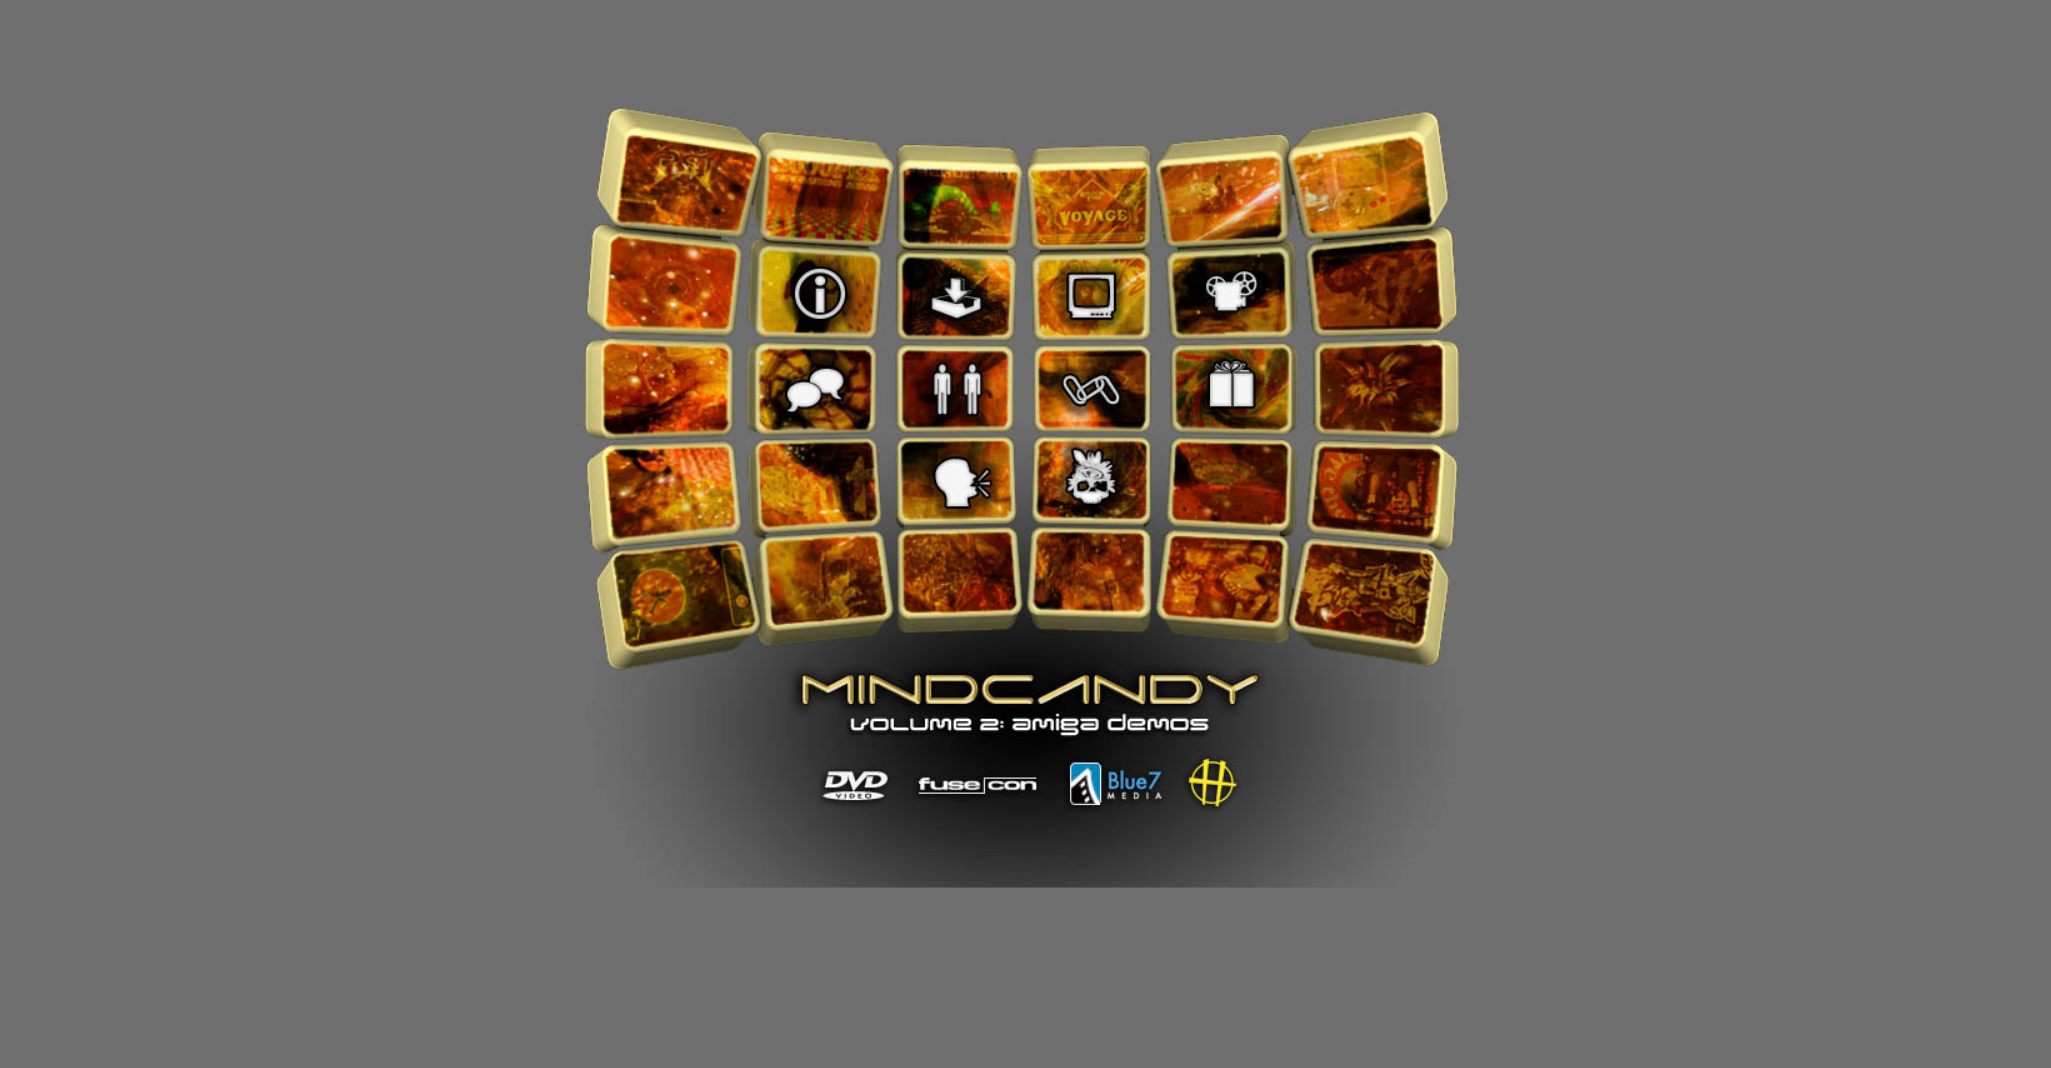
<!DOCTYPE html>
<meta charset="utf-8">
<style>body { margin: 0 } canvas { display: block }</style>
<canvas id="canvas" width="2051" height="1068"></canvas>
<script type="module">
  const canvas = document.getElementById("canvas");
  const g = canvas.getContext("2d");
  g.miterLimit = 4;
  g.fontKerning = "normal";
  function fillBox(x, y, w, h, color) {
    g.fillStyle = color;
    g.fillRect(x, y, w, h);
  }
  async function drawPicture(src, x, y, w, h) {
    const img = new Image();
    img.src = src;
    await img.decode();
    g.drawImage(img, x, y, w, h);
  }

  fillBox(0, 0, 2051, 1068, "#6F6F6F");
  await drawPicture("pic1.png", 576, 107, 890, 781);
</script>
